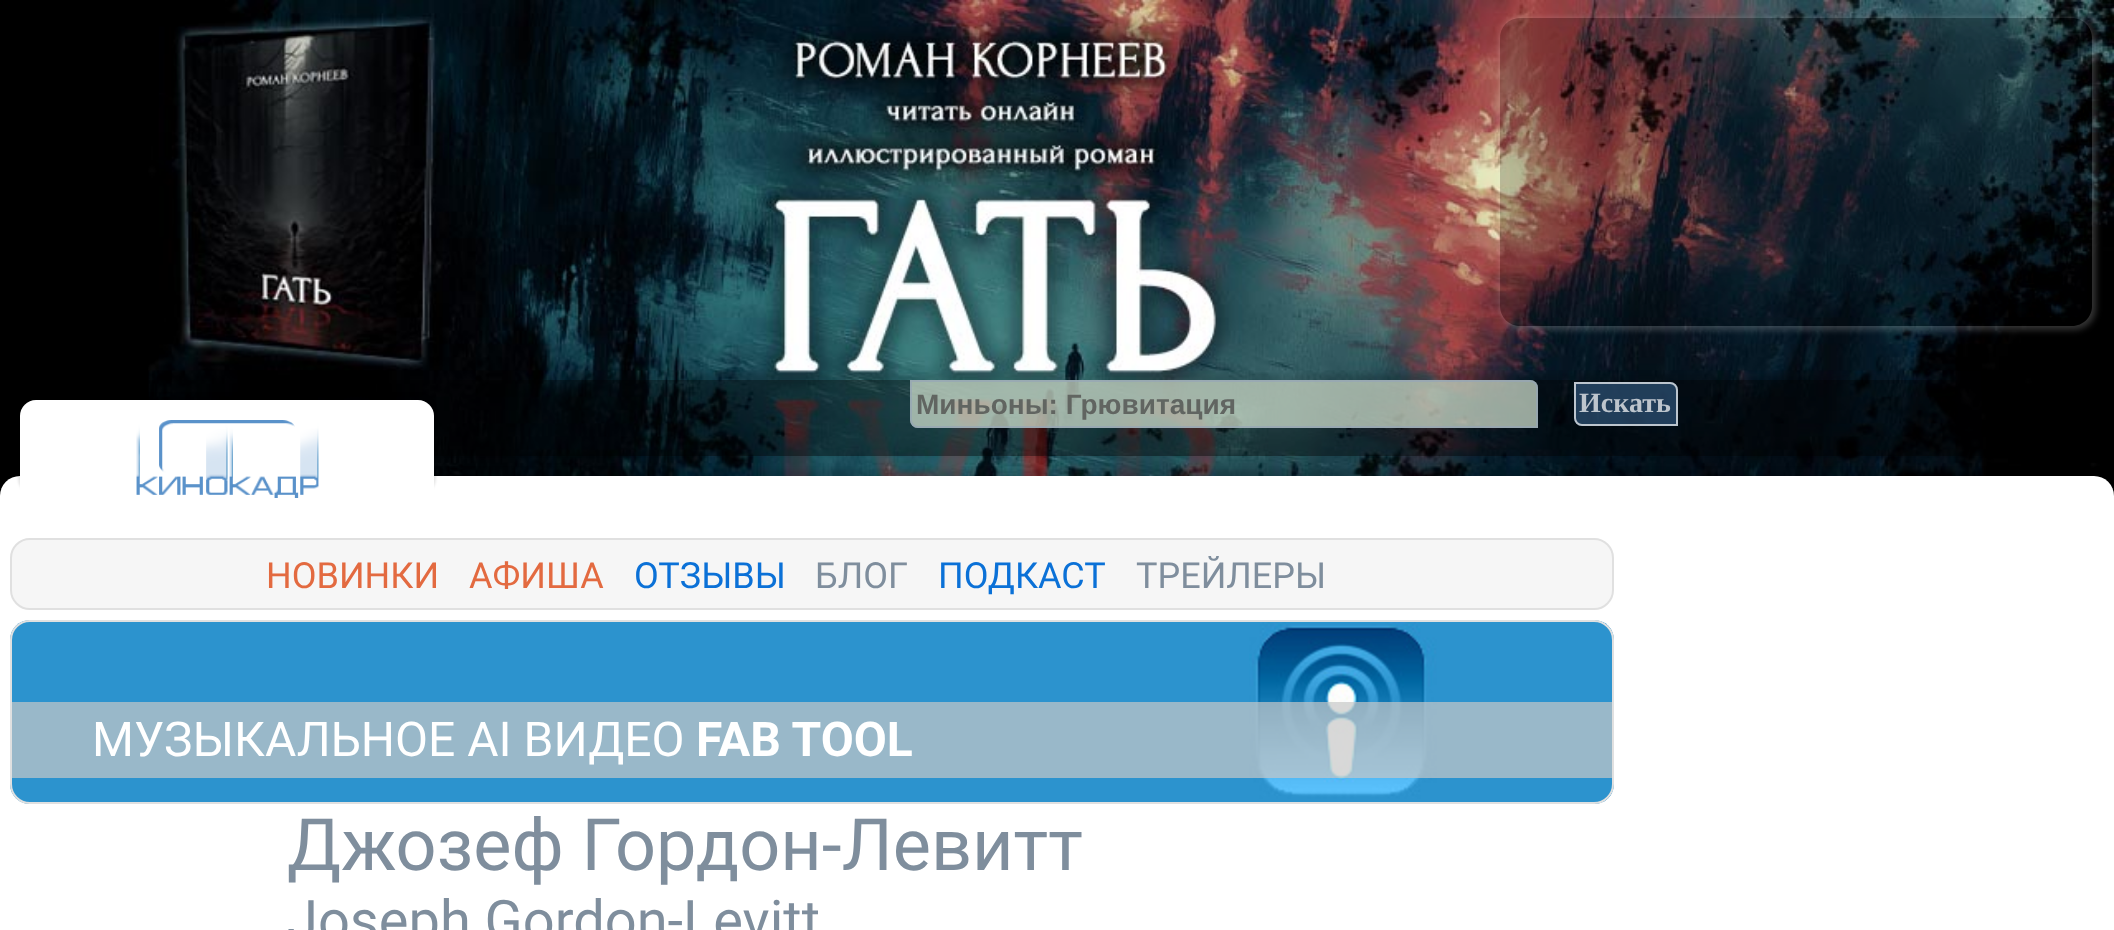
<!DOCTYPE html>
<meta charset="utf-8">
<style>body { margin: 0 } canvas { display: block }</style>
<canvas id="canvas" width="2114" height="930"></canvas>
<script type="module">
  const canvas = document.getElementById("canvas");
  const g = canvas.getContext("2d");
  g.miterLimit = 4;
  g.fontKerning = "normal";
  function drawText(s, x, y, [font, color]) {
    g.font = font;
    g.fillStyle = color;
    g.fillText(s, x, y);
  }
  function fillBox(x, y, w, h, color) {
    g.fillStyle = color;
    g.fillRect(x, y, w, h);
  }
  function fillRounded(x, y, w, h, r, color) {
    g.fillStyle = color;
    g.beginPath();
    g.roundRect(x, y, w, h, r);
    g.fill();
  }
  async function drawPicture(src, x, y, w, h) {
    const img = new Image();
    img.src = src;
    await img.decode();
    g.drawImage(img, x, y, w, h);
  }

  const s1 = ["bold 28px Liberation Sans", "#616561"];
  const s2 = ["bold 28px Liberation Serif", "#BDC5CD"];
  const s3 = ["36px Roboto", "#E36A40"];
  const s4 = ["36px Roboto", "#0B71D7"];
  const s5 = ["36px Roboto", "#7F8E9D"];
  const s6 = ["48px Roboto", "#FFFFFF"];
  const s7 = ["bold 48px Roboto", "#FFFFFF"];
  const s8 = ["72px Roboto", "#7F8E9D"];
  const s9 = ["56px Roboto", "#7F8E9D"];

  fillBox(0, 0, 2114, 930, "#000000");
  await drawPicture("pic1.png", 148, 0, 1966, 496);
  g.save();
  g.beginPath();
  g.moveTo(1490, 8);
  g.lineTo(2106, 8);
  g.lineTo(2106, 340);
  g.lineTo(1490, 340);
  g.closePath();
  g.moveTo(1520, 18);
  g.lineTo(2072, 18);
  g.bezierCurveTo(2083, 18, 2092, 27, 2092, 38);
  g.lineTo(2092, 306);
  g.bezierCurveTo(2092, 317, 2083, 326, 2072, 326);
  g.lineTo(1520, 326);
  g.bezierCurveTo(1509, 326, 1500, 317, 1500, 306);
  g.lineTo(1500, 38);
  g.bezierCurveTo(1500, 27, 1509, 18, 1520, 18);
  g.closePath();
  g.clip("evenodd");
  g.fillStyle = "rgba(255, 255, 255, 0.2)";
  g.filter = "blur(3px)";
  g.beginPath();
  g.roundRect(1500, 18, 596, 312, 22);
  g.fill();
  g.filter = "none";
  g.restore();
  fillRounded(1500, 18, 592, 308, 20, "rgba(0, 0, 0, 0.2)");
  g.save();
  g.beginPath();
  g.moveTo(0, 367);
  g.lineTo(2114, 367);
  g.lineTo(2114, 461);
  g.lineTo(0, 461);
  g.closePath();
  g.moveTo(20, 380);
  g.lineTo(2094, 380);
  g.bezierCurveTo(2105, 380, 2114, 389, 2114, 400);
  g.lineTo(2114, 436);
  g.bezierCurveTo(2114, 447, 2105, 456, 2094, 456);
  g.lineTo(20, 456);
  g.bezierCurveTo(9, 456, 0, 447, 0, 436);
  g.lineTo(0, 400);
  g.bezierCurveTo(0, 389, 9, 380, 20, 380);
  g.closePath();
  g.clip("evenodd");
  g.fillStyle = "rgba(0, 0, 0, 0.1)";
  g.filter = "blur(2px)";
  g.beginPath();
  g.roundRect(-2, 374, 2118, 80, 22);
  g.fill();
  g.filter = "none";
  g.restore();
  fillRounded(0, 380, 2114, 76, 20, "rgba(0, 0, 0, 0.4)");
  g.fillStyle = "rgba(0, 0, 0, 0.1)";
  g.filter = "blur(2px)";
  g.beginPath();
  g.roundRect(-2, 470, 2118, 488, 22);
  g.fill();
  g.filter = "none";
  fillRounded(0, 476, 2114, 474, 20, "#FFFFFF");
  g.fillStyle = "rgba(0, 0, 0, 0.1)";
  g.filter = "blur(1px)";
  g.beginPath();
  g.roundRect(18, 394, 418, 102, 18);
  g.fill();
  g.filter = "none";
  g.fillStyle = "#FFFFFF";
  g.beginPath();
  g.roundRect(20, 400, 414, 98, [16, 16, 0, 0]);
  g.fill();
  await drawPicture("pic2.png", 136, 420, 183, 78);
  g.fillStyle = "rgba(217, 232, 213, 0.7)";
  g.beginPath();
  g.roundRect(910, 380, 628, 48, [0, 8, 0, 8]);
  g.fill();
  g.beginPath();
  g.roundRect(911, 381, 626, 46, [0, 7, 0, 7]);
  g.strokeStyle = "rgba(149, 165, 182, 0.7)";
  g.lineWidth = 2;
  g.stroke();
  drawText("Миньоны: Грювитация", 916, 414, s1);
  g.fillStyle = "rgba(47, 84, 121, 0.7)";
  g.beginPath();
  g.roundRect(1574, 382, 104, 44, [0, 8, 0, 8]);
  g.fill();
  g.beginPath();
  g.roundRect(1575, 383, 102, 42, [0, 7, 0, 7]);
  g.strokeStyle = "rgba(255, 255, 255, 0.7)";
  g.stroke();
  drawText("Искать", 1579, 412, s2);
  g.fillStyle = "#F6F6F6";
  g.beginPath();
  g.roundRect(11, 539, 1602, 70, 19);
  g.fill();
  g.strokeStyle = "#E0E0E0";
  g.stroke();
  drawText("НОВИНКИ", 266, 588, s3);
  drawText("АФИША", 469, 588, s3);
  drawText("ОТЗЫВЫ", 634, 588, s4);
  drawText("БЛОГ", 815, 588, s5);
  drawText("ПОДКАСТ", 938, 588, s4);
  drawText("ТРЕЙЛЕРЫ", 1136, 588, s5);
  fillRounded(10, 620, 1604, 184, 20, "#2C93CE");
  await drawPicture("pic3.png", 1249, 622, 363, 180);
  g.beginPath();
  g.roundRect(11, 621, 1602, 182, 19);
  g.stroke();
  fillBox(12, 702, 1600, 76, "rgba(200, 200, 200, 0.7)");
  drawText("МУЗЫКАЛЬНОЕ AI ВИДЕО", 92, 756, s6);
  drawText("FAB TOOL", 696, 756, s7);
  drawText("Джозеф Гордон-Левитт", 287, 870, s8);
  drawText("Joseph Gordon-Levitt", 287, 940, s9);
</script>
